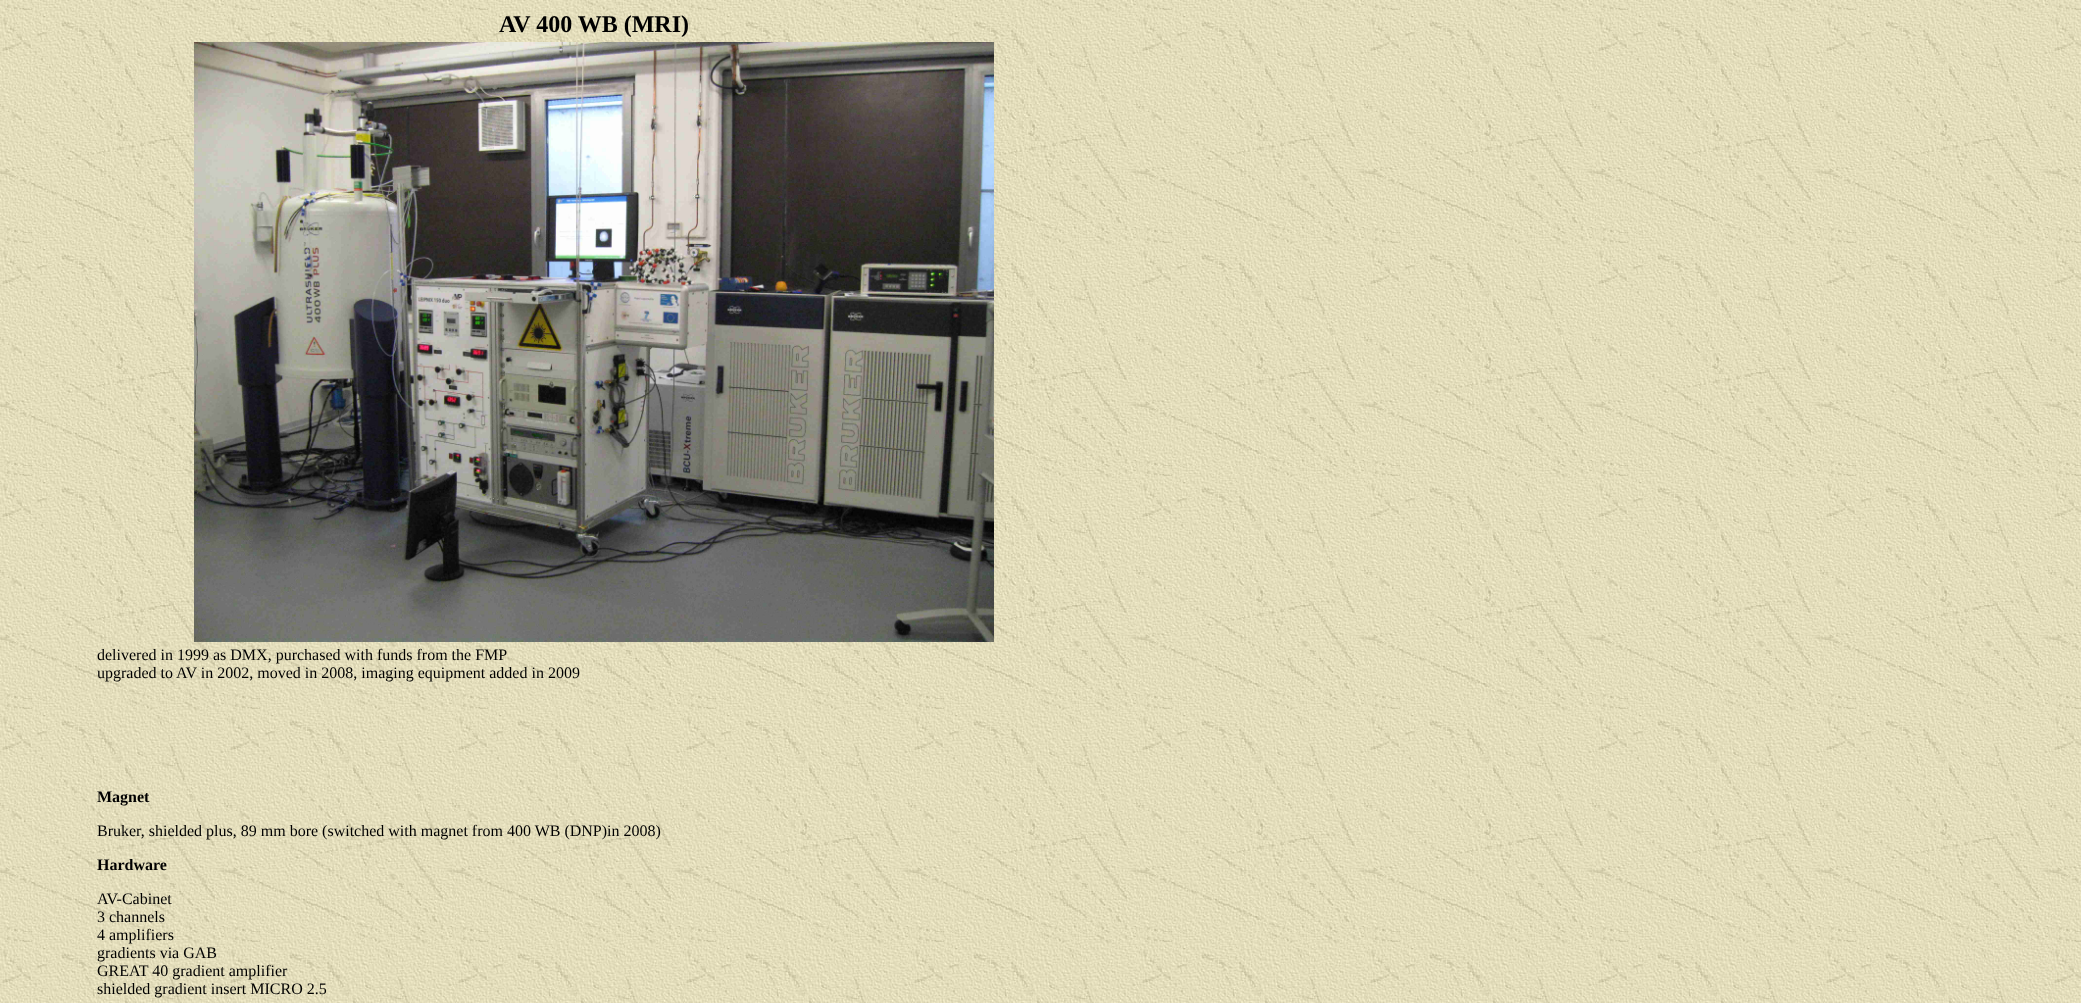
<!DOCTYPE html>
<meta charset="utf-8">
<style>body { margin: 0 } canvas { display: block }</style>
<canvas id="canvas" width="2081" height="1003"></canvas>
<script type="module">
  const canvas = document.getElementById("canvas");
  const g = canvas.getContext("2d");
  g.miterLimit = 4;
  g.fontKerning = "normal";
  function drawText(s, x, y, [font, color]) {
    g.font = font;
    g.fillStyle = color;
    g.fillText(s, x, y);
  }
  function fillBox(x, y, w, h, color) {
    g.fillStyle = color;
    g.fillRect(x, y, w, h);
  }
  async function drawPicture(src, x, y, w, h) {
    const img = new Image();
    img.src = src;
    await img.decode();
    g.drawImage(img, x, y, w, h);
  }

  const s1 = ["bold 24px Liberation Serif", "#000000"];
  const s2 = ["16px Liberation Serif", "#000000"];
  const s3 = ["bold 16px Liberation Serif", "#000000"];

  fillBox(0, 0, 2081, 1003, "#FFFFFF");
  await drawPicture("pic1.png", 0, 0, 2081, 1003);
  drawText("AV 400 WB (MRI)", 499, 32, s1);
  await drawPicture("pic2.png", 194, 42, 800, 600);
  drawText("delivered in 1999 as DMX, purchased with funds from the FMP", 97, 660, s2);
  drawText("upgraded to AV in 2002, moved in 2008, imaging equipment added in 2009", 97, 678, s2);
  drawText("Magnet", 97, 802, s3);
  drawText("Bruker, shielded plus, 89 mm bore (switched with magnet from 400 WB (DNP)in 2008)", 97, 836, s2);
  drawText("Hardware", 97, 870, s3);
  drawText("AV-Cabinet", 97, 904, s2);
  drawText("3 channels", 97, 922, s2);
  drawText("4 amplifiers", 97, 940, s2);
  drawText("gradients via GAB", 97, 958, s2);
  drawText("GREAT 40 gradient amplifier", 97, 976, s2);
  drawText("shielded gradient insert MICRO 2.5", 97, 994, s2);
</script>
